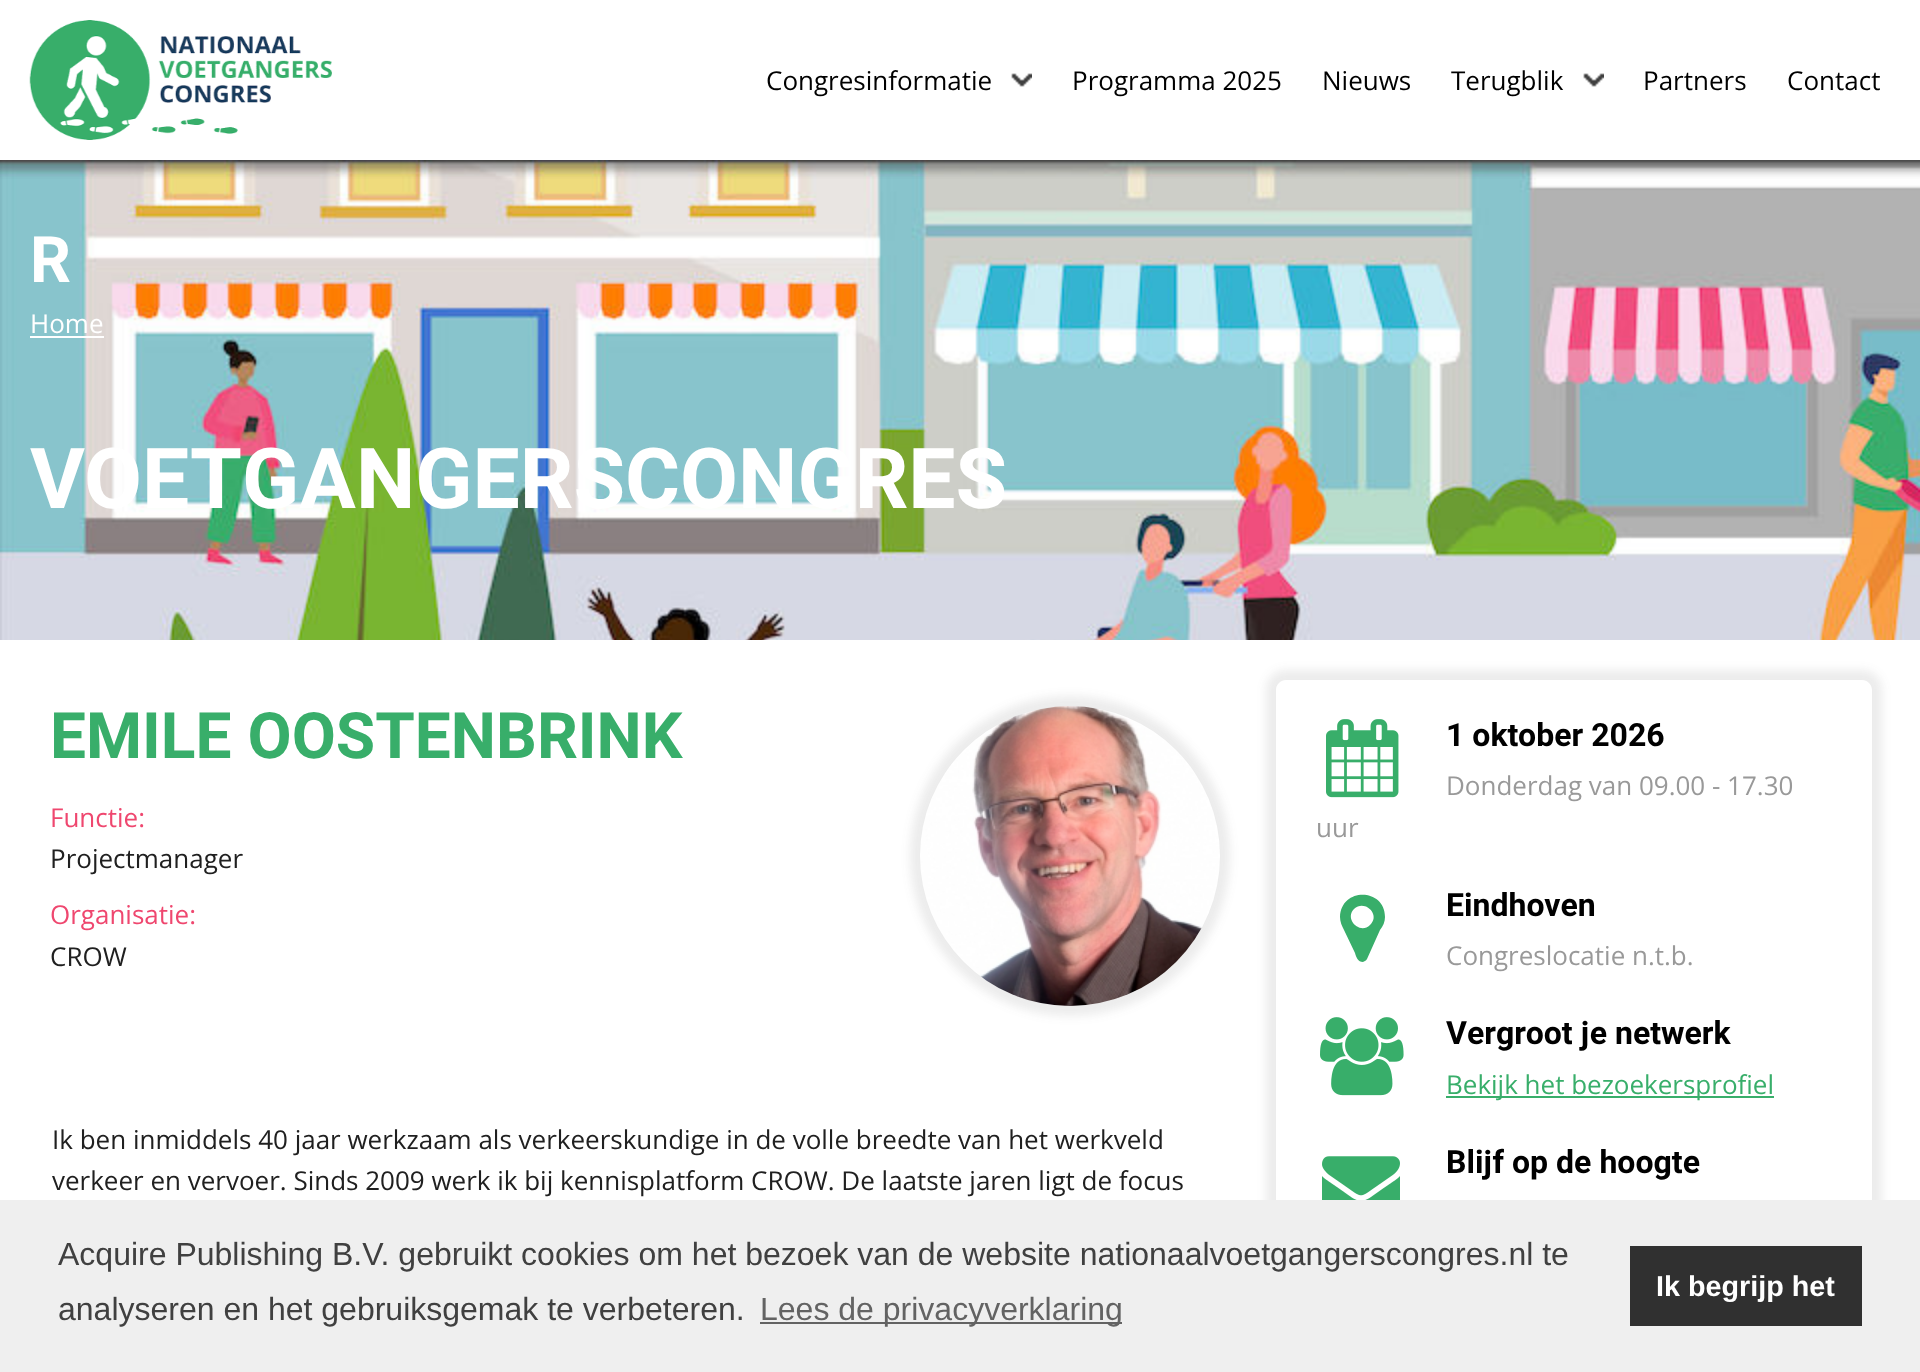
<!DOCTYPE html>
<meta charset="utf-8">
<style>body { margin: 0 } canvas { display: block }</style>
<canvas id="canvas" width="1920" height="1372"></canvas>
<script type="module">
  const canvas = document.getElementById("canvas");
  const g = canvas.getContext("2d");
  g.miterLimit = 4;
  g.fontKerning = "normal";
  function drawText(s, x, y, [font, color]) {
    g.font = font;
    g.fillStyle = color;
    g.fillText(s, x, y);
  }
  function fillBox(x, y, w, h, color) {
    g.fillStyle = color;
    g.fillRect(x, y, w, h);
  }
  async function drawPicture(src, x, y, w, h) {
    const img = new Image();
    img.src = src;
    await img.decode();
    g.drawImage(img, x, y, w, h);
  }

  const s1 = ["26px Open Sans", "#000000"];
  const s2 = ["bold 64px Heebo", "#FFFFFF"];
  const s3 = ["26px Open Sans", "#FFFFFF"];
  const s4 = ["bold 84px Heebo", "#FFFFFF"];
  const s5 = ["bold 64px Heebo", "#38AE6A"];
  const s6 = ["26px Open Sans", "#EF476F"];
  const s7 = ["26px Open Sans", "#202020"];
  const s8 = ["bold 32px Heebo", "#000000"];
  const s9 = ["26px Open Sans", "#999999"];
  const s10 = ["26px Open Sans", "#38AE6A"];
  const s11 = ["32px Liberation Sans", "#404040"];
  const s12 = ["32px Liberation Sans", "#636363"];
  const s13 = ["bold 28.75px Liberation Sans", "#FFFFFF"];

  fillBox(0, 0, 1920, 1372, "#FFFFFF");
  await drawPicture("pic3.png", 0, 160, 1920, 480);
  g.save();
  g.beginPath();
  g.rect(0, 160, 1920, 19);
  g.clip();
  g.fillStyle = "rgba(64, 64, 64, 0.5)";
  g.filter = "blur(5px)";
  g.beginPath();
  g.rect(-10, -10, 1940, 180);
  g.fill();
  g.filter = "none";
  g.restore();
  await drawPicture("pic1.png", 29, 20, 303, 120);
  drawText("Congresinformatie", 766, 90, s1);
  await drawPicture("pic2.png", 1011, 73, 21, 14);
  drawText("Programma 2025", 1072, 90, s1);
  drawText("Nieuws", 1322, 90, s1);
  drawText("Terugblik", 1451, 90, s1);
  await drawPicture("pic2.png", 1583, 73, 21, 14);
  drawText("Partners", 1643, 90, s1);
  drawText("Contact", 1787, 90, s1);
  drawText("R", 30, 282, s2);
  drawText("Home", 30, 333, s3);
  fillBox(30, 336, 74, 2, "#FFFFFF");
  drawText("VOETGANGERSCONGRES", 30, 508, s4);
  drawText("EMILE OOSTENBRINK", 50, 758, s5);
  drawText("Functie:", 50, 827, s6);
  drawText("Projectmanager", 50, 868, s7);
  drawText("Organisatie:", 50, 924, s6);
  drawText("CROW", 50, 966, s7);
  g.fillStyle = "rgba(64, 64, 64, 0.1)";
  g.filter = "blur(5px)";
  g.beginPath();
  g.roundRect(910, 696, 320, 320, 160);
  g.fill();
  g.filter = "none";
  await drawPicture("pic4.png", 920, 706, 300, 300);
  drawText("Ik ben inmiddels 40 jaar werkzaam als verkeerskundige in de volle breedte van het werkveld", 52, 1149, s7);
  drawText("verkeer en vervoer. Sinds 2009 werk ik bij kennisplatform CROW. De laatste jaren ligt de focus", 52, 1190, s7);
  g.save();
  g.beginPath();
  g.moveTo(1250, 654);
  g.lineTo(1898, 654);
  g.lineTo(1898, 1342);
  g.lineTo(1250, 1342);
  g.closePath();
  g.moveTo(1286, 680);
  g.lineTo(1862, 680);
  g.bezierCurveTo(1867.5, 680, 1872, 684.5, 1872, 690);
  g.lineTo(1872, 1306);
  g.bezierCurveTo(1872, 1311.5, 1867.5, 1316, 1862, 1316);
  g.lineTo(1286, 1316);
  g.bezierCurveTo(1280.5, 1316, 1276, 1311.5, 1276, 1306);
  g.lineTo(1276, 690);
  g.bezierCurveTo(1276, 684.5, 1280.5, 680, 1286, 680);
  g.closePath();
  g.clip("evenodd");
  g.fillStyle = "rgba(64, 64, 64, 0.1)";
  g.filter = "blur(5px)";
  g.beginPath();
  g.roundRect(1266, 670, 616, 656, 20);
  g.fill();
  g.filter = "none";
  g.restore();
  await drawPicture("pic5.png", 1326, 719, 73, 79);
  drawText("1 oktober 2026", 1446, 746, s8);
  drawText("Donderdag van 09.00 - 17.30", 1446, 795, s9);
  drawText("uur", 1316, 837, s9);
  g.fillStyle = "#38AE6A";
  g.beginPath();
  g.moveTo(1370, 925);
  g.bezierCurveTo(1381, 915, 1365, 899, 1354, 909);
  g.bezierCurveTo(1344, 919, 1360, 935, 1370, 925);
  g.closePath();
  g.moveTo(1385, 917);
  g.bezierCurveTo(1385, 922, 1383, 926, 1380, 930);
  g.lineTo(1367, 959);
  g.bezierCurveTo(1366, 961, 1364, 961, 1363, 962);
  g.bezierCurveTo(1358, 962, 1356, 957, 1355, 953);
  g.lineTo(1344, 930);
  g.bezierCurveTo(1342, 926, 1340, 922, 1340, 917);
  g.bezierCurveTo(1341, 887, 1385, 888, 1385, 917);
  g.closePath();
  g.fill();
  drawText("Eindhoven", 1446, 916, s8);
  drawText("Congreslocatie n.t.b.", 1446, 965, s9);
  await drawPicture("pic6.png", 1320, 1017, 84, 79);
  drawText("Vergroot je netwerk", 1446, 1044, s8);
  fillBox(1446, 1096, 328, 2, "#38AE6A");
  drawText("Bekijk het bezoekersprofiel", 1446, 1094, s10);
  await drawPicture("pic7.png", 1322, 1156, 78, 44);
  drawText("Blijf op de hoogte", 1446, 1173, s8);
  fillBox(0, 1200, 1920, 172, "#EFEFEF");
  drawText("Acquire Publishing B.V. gebruikt cookies om het bezoek van de website nationaalvoetgangerscongres.nl te", 58, 1265, s11);
  drawText("analyseren en het gebruiksgemak te verbeteren.", 58, 1320, s11);
  fillBox(760, 1322, 362, 2, "#636363");
  drawText("Lees de privacyverklaring", 760, 1320, s12);
  fillBox(1630, 1246, 232, 80, "#303030");
  drawText("Ik begrijp het", 1656, 1296, s13);
</script>
